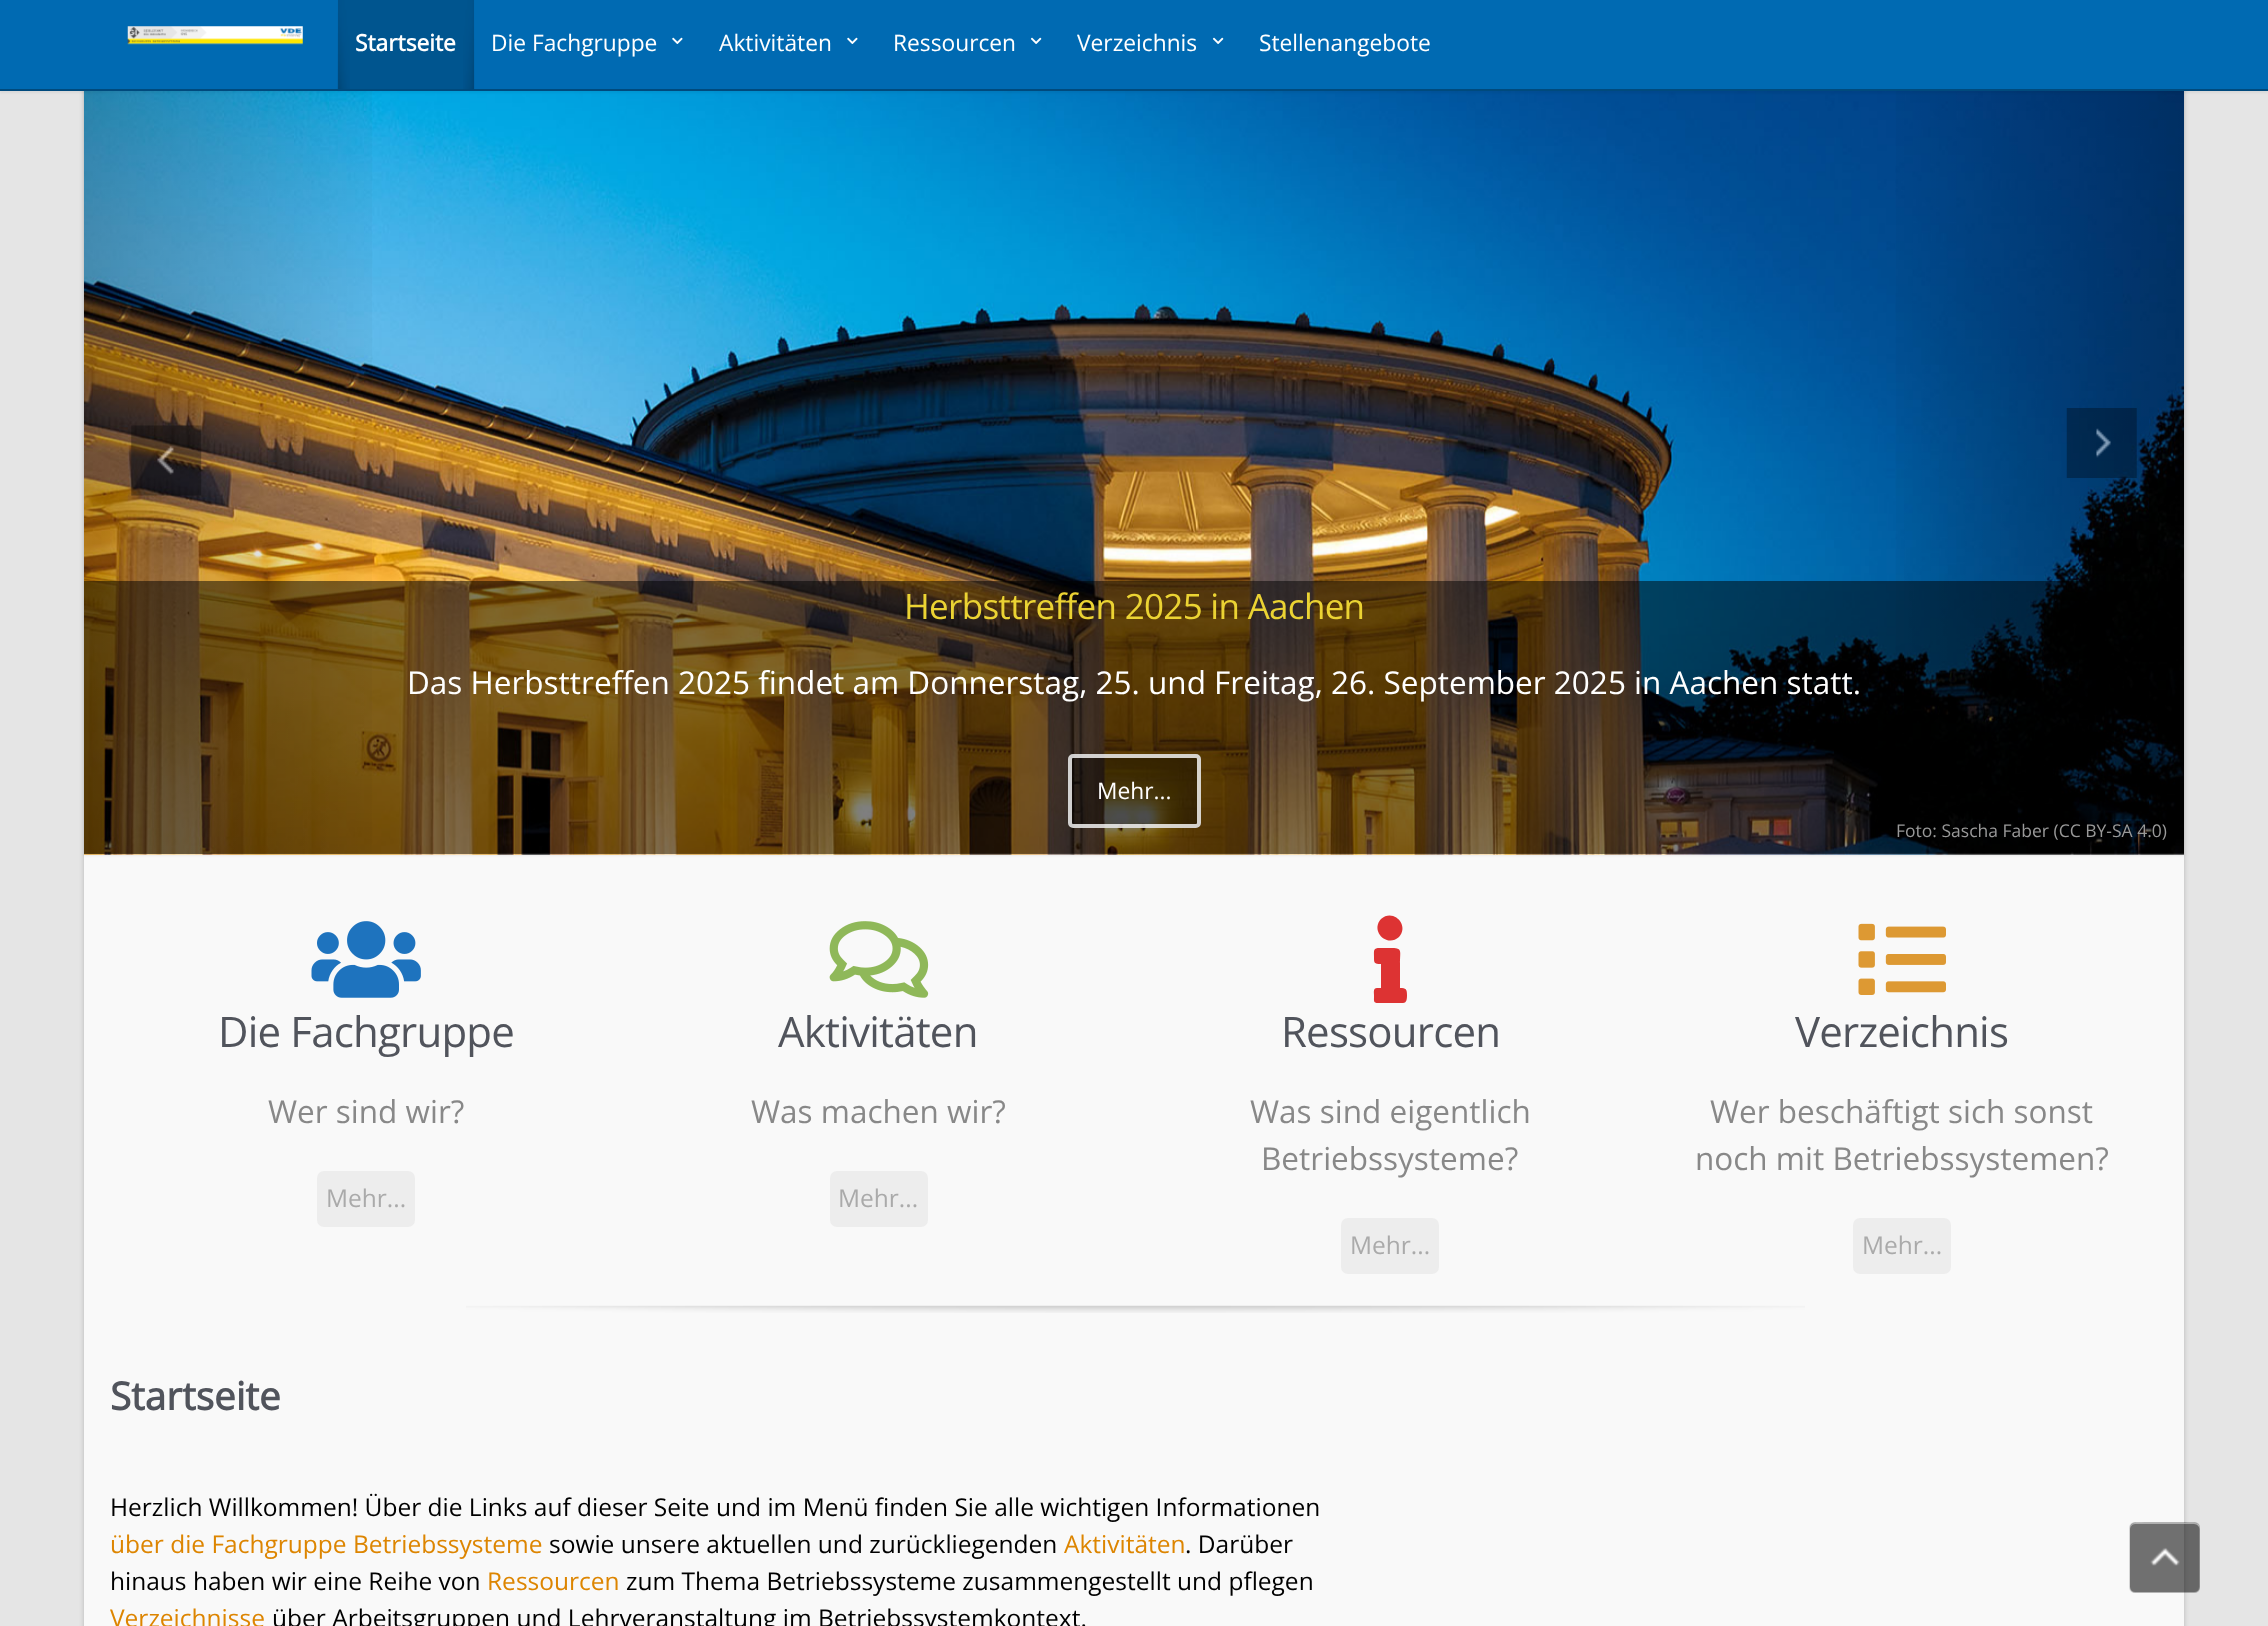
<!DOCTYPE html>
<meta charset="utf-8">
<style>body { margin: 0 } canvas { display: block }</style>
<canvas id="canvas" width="2268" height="1626"></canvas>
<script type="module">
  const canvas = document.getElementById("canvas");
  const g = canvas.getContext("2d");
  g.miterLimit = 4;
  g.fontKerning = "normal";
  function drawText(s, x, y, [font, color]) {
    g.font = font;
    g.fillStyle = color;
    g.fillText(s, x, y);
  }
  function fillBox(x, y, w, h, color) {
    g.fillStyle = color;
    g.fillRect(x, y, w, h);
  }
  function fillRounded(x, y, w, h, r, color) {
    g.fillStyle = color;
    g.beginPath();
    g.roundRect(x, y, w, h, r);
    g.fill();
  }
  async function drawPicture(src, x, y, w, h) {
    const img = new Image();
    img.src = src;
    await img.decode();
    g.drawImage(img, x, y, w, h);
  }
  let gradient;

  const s1 = ["bold 22.75px Open Sans", "#FFFFFF"];
  const s2 = ["22.75px Open Sans", "#FFFFFF"];
  const s3 = ["35px Open Sans", "#EBD333"];
  const s4 = ["31.5px Open Sans", "#FFFFFF"];
  const s5 = ["17.5px Open Sans", "#999999"];
  const s6 = ["42px Open Sans", "#51545C"];
  const s7 = ["31.5px Open Sans", "#888888"];
  const s8 = ["24.5px Open Sans", "#AAAAAA"];
  const s9 = ["bold 38.5px Open Sans", "#51545C"];
  const s10 = ["24.5px Open Sans", "#000000"];
  const s11 = ["24.5px Open Sans", "#DD8500"];

  fillBox(0, 0, 2268, 1626, "#E5E5E5");
  g.fillStyle = "rgba(0, 0, 0, 0.2)";
  g.filter = "blur(2.5px)";
  g.beginPath();
  g.rect(84, -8, 2100, 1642);
  g.fill();
  g.filter = "none";
  fillBox(84, 853, 2100, 773, "#F9F9F9");
  g.fillStyle = "rgba(0, 0, 0, 0.05)";
  g.filter = "blur(1px)";
  g.beginPath();
  g.rect(84, 68, 2100, 788);
  g.fill();
  g.filter = "none";
  await drawPicture("pic8.png", 84, 91, 2100, 764);
  fillBox(84, 581, 2100, 273, "rgba(0, 0, 0, 0.5)");
  gradient = g.createLinearGradient(84, 460, 399, 460);
  gradient.addColorStop(0, "rgba(0, 0, 0, 0.25)");
  gradient.addColorStop(1, "rgba(0, 0, 0, 0)");
  g.fillStyle = gradient;
  g.fillRect(84, 91, 288, 763);
  gradient = g.createLinearGradient(1869, 443, 2184, 443);
  gradient.addColorStop(0, "rgba(0, 0, 0, 0)");
  gradient.addColorStop(1, "rgba(0, 0, 0, 0.25)");
  g.fillStyle = gradient;
  g.fillRect(1896, 91, 288, 728);
  g.fillStyle = "rgba(0, 0, 0, 0.05)";
  g.filter = "blur(1px)";
  g.beginPath();
  g.rect(0, 2, 2268, 91);
  g.fill();
  g.filter = "none";
  fillBox(0, 0, 2268, 89, "#006AB2");
  fillBox(0, 89, 2268, 2, "#004A7D");
  await drawPicture("pic1.png", 127, 26, 176, 19);
  fillBox(338, 0, 136, 89, "#005FA0");
  await drawPicture("pic2.png", 337, 0, 13, 89);
  await drawPicture("pic3.png", 463, 0, 12, 90);
  fillBox(338, 0, 136, 89, "rgba(0, 0, 0, 0.1)");
  drawText("Startseite", 355, 51, s1);
  drawText("Die Fachgruppe", 491, 51, s2);
  await drawPicture("pic4.png", 672, 37, 11, 7);
  drawText("Aktivitäten", 719, 51, s2);
  await drawPicture("pic4.png", 847, 37, 11, 7);
  drawText("Ressourcen", 893, 51, s2);
  await drawPicture("pic5.png", 1030, 37, 12, 7);
  drawText("Verzeichnis", 1077, 51, s2);
  await drawPicture("pic5.png", 1212, 37, 12, 7);
  drawText("Stellenangebote", 1259, 51, s2);
  await drawPicture("pic6.png", 131, 425, 71, 71);
  await drawPicture("pic7.png", 2066, 408, 71, 70);
  g.letterSpacing = "-0.7px";
  drawText("Herbsttreffen 2025 in Aachen", 904, 619, s3);
  g.letterSpacing = "0px";
  drawText("Das Herbsttreffen 2025 findet am Donnerstag, 25. und Freitag, 26. September 2025 in Aachen statt.", 407, 694, s4);
  fillRounded(1068, 754, 133, 74, 5, "rgba(0, 0, 0, 0.4)");
  g.beginPath();
  g.roundRect(1070, 756, 129, 70, 3);
  g.strokeStyle = "rgba(255, 255, 255, 0.8)";
  g.lineWidth = 4;
  g.stroke();
  drawText("Mehr...", 1097, 799, s2);
  drawText("Foto: Sascha Faber (CC BY-SA 4.0)", 1896, 837, s5);
  await drawPicture("pic9.png", 466, 1305, 1339, 8);
  await drawPicture("pic10.png", 311, 921, 110, 77);
  g.letterSpacing = "-0.8px";
  drawText("Die Fachgruppe", 218, 1047, s6);
  g.letterSpacing = "0px";
  drawText("Wer sind wir?", 268, 1123, s7);
  fillRounded(317, 1171, 98, 56, 7, "#EDEDED");
  drawText("Mehr...", 326, 1207, s8);
  await drawPicture("pic11.png", 829, 921, 100, 77);
  g.letterSpacing = "-0.8px";
  drawText("Aktivitäten", 778, 1047, s6);
  g.letterSpacing = "0px";
  drawText("Was machen wir?", 751, 1123, s7);
  fillRounded(830, 1171, 98, 56, 7, "#EDEDED");
  drawText("Mehr...", 838, 1207, s8);
  g.fillStyle = "#DD3333";
  g.beginPath();
  g.moveTo(1377, 988);
  g.lineTo(1381, 988);
  g.lineTo(1381, 964);
  g.bezierCurveTo(1374, 964, 1374, 963, 1374, 957);
  g.bezierCurveTo(1374, 950, 1373, 948, 1380, 948);
  g.lineTo(1390, 948);
  g.bezierCurveTo(1403, 948, 1400, 950, 1400, 964);
  g.lineTo(1400, 988);
  g.bezierCurveTo(1406, 988, 1407, 989, 1407, 995);
  g.bezierCurveTo(1407, 998, 1407, 1003, 1403, 1003);
  g.lineTo(1381, 1003);
  g.bezierCurveTo(1373, 1003, 1374, 1003, 1374, 995);
  g.bezierCurveTo(1374, 992, 1373, 988, 1377, 988);
  g.closePath();
  g.moveTo(1381, 919);
  g.bezierCurveTo(1393, 908, 1410, 925, 1399, 937);
  g.bezierCurveTo(1387, 948, 1370, 931, 1381, 919);
  g.closePath();
  g.fill();
  g.letterSpacing = "-0.8px";
  drawText("Ressourcen", 1281, 1047, s6);
  g.letterSpacing = "0px";
  drawText("Was sind eigentlich", 1250, 1123, s7);
  drawText("Betriebssysteme?", 1261, 1170, s7);
  fillRounded(1341, 1218, 98, 56, 7, "#EDEDED");
  drawText("Mehr...", 1350, 1254, s8);
  await drawPicture("pic12.png", 1858, 923, 88, 72);
  g.letterSpacing = "-0.8px";
  drawText("Verzeichnis", 1795, 1047, s6);
  g.letterSpacing = "0px";
  drawText("Wer beschäftigt sich sonst", 1710, 1123, s7);
  drawText("noch mit Betriebssystemen?", 1695, 1170, s7);
  fillRounded(1853, 1218, 98, 56, 7, "#EDEDED");
  drawText("Mehr...", 1862, 1254, s8);
  drawText("Startseite", 110, 1410, s9);
  drawText("Herzlich Willkommen! Über die Links auf dieser Seite und im Menü finden Sie alle wichtigen Informationen", 110, 1516, s10);
  drawText("über die Fachgruppe Betriebssysteme", 110, 1553, s11);
  drawText("sowie unsere aktuellen und zurückliegenden", 549, 1553, s10);
  drawText("Aktivitäten", 1064, 1553, s11);
  drawText(". Darüber", 1185, 1553, s10);
  drawText("hinaus haben wir eine Reihe von", 110, 1590, s10);
  drawText("Ressourcen", 487, 1590, s11);
  drawText("zum Thema Betriebssysteme zusammengestellt und pflegen", 626, 1590, s10);
  drawText("Verzeichnisse", 110, 1627, s11);
  drawText("über Arbeitsgruppen und Lehrveranstaltung im Betriebssystemkontext.", 272, 1627, s10);
  await drawPicture("pic13.png", 2129, 1522, 71, 71);
  g.fillStyle = "rgba(255, 255, 255, 0.45)";
  g.beginPath();
  g.moveTo(2135, 1524);
  g.lineTo(2194, 1524);
  g.bezierCurveTo(2197, 1524, 2200, 1527, 2200, 1530);
  g.bezierCurveTo(2200, 1521, 2193, 1523, 2185, 1523);
  g.lineTo(2145, 1523);
  g.bezierCurveTo(2137, 1523, 2130, 1521, 2130, 1530);
  g.bezierCurveTo(2130, 1527, 2132, 1524, 2135, 1524);
  g.closePath();
  g.fill();
</script>
